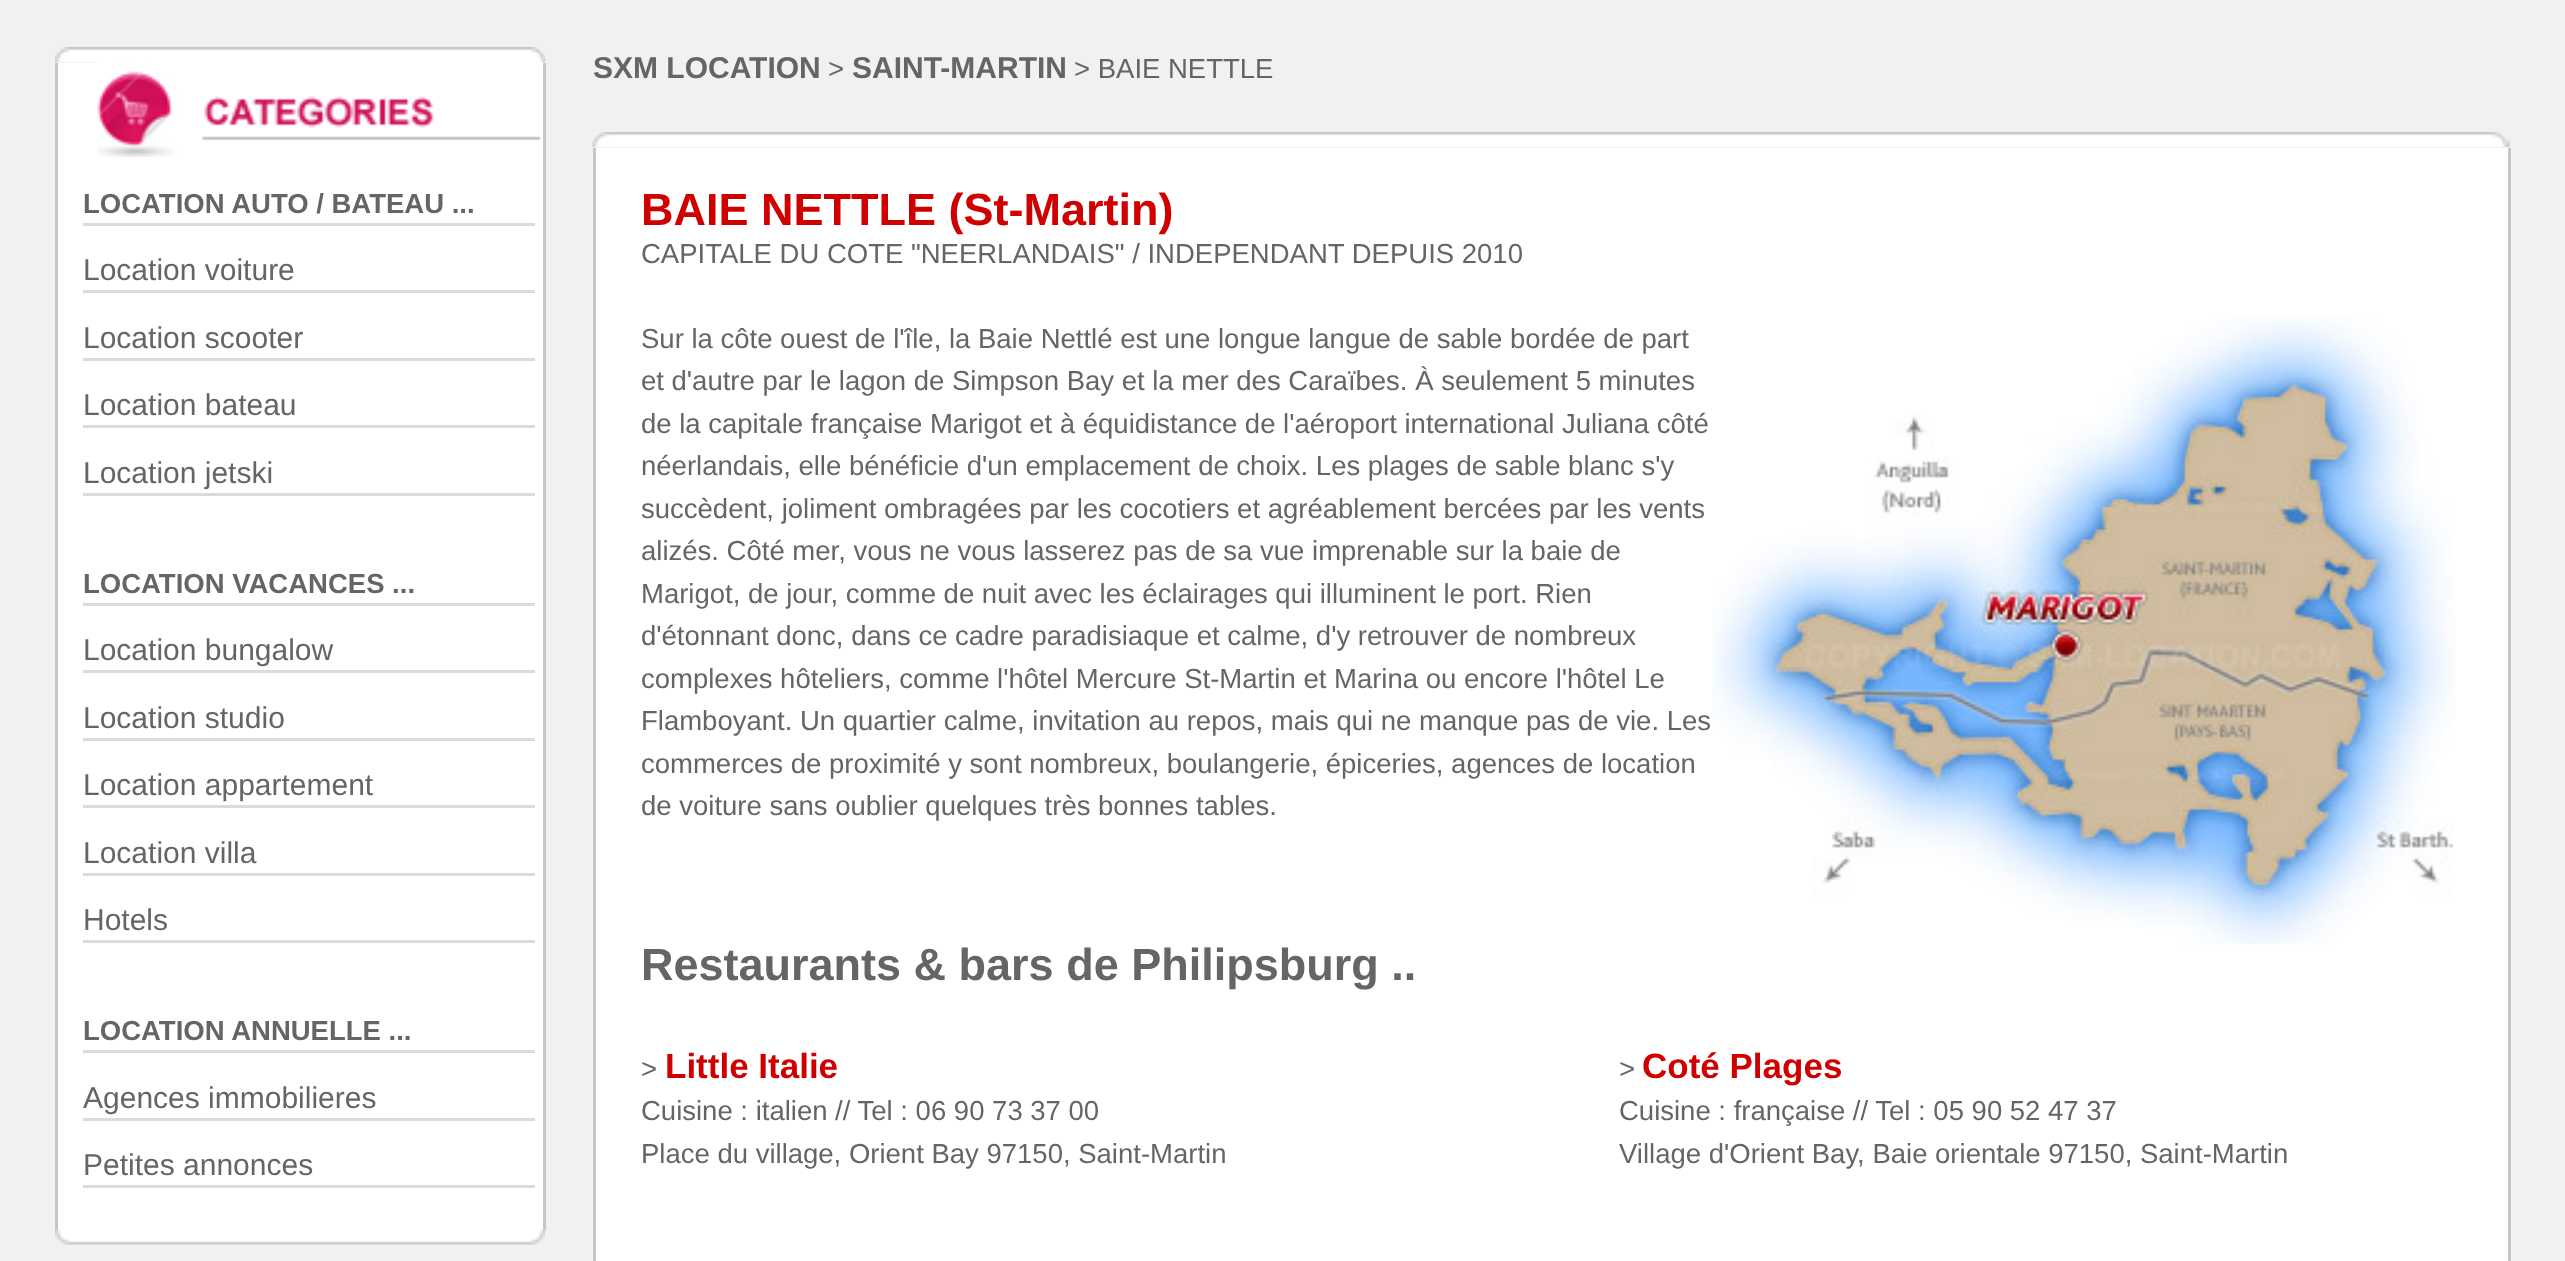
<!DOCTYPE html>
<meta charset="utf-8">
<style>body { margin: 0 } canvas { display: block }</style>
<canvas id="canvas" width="2565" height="1261"></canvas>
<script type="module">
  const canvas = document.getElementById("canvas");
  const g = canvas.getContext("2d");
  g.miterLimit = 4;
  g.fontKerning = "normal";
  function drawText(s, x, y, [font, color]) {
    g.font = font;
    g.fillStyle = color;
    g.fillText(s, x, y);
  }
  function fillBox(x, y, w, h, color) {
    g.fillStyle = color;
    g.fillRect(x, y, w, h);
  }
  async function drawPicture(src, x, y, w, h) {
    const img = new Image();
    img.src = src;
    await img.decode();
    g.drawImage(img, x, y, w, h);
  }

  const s1 = ["bold 27.5px Liberation Sans", "#656565"];
  const s2 = ["30px Liberation Sans", "#656565"];
  const s3 = ["bold 30px Liberation Sans", "#656565"];
  const s4 = ["27.5px Liberation Sans", "#656565"];
  const s5 = ["bold 45px Liberation Sans", "#CF0100"];
  const s6 = ["bold 45px Liberation Sans", "#656565"];
  const s7 = ["bold 35px Liberation Sans", "#CF0100"];

  fillBox(0, 0, 2565, 1261, "#F1F1F1");
  await drawPicture("pic1.png", 55, 47, 490, 15);
  fillBox(58, 63, 485, 1167, "#FFFFFF");
  fillBox(543, 63, 3, 1167, "#C6C6C7");
  fillBox(55, 63, 3, 1167, "#C6C6C7");
  await drawPicture("pic2.png", 97, 62, 446, 95);
  fillBox(83, 223, 452, 3, "#DBDBDB");
  drawText("LOCATION AUTO / BATEAU ...", 83, 213, s1);
  fillBox(83, 290, 452, 3, "#DBDBDB");
  drawText("Location voiture", 83, 280, s2);
  fillBox(83, 358, 452, 3, "#DBDBDB");
  drawText("Location scooter", 83, 348, s2);
  fillBox(83, 425, 452, 3, "#DBDBDB");
  drawText("Location bateau", 83, 415, s2);
  fillBox(83, 493, 452, 3, "#DBDBDB");
  drawText("Location jetski", 83, 483, s2);
  fillBox(83, 603, 452, 3, "#DBDBDB");
  drawText("LOCATION VACANCES ...", 83, 593, s1);
  fillBox(83, 670, 452, 3, "#DBDBDB");
  drawText("Location bungalow", 83, 660, s2);
  fillBox(83, 738, 452, 3, "#DBDBDB");
  drawText("Location studio", 83, 728, s2);
  fillBox(83, 805, 452, 3, "#DBDBDB");
  drawText("Location appartement", 83, 795, s2);
  fillBox(83, 873, 452, 3, "#DBDBDB");
  drawText("Location villa", 83, 863, s2);
  fillBox(83, 940, 452, 3, "#DBDBDB");
  drawText("Hotels", 83, 930, s2);
  fillBox(83, 1050, 452, 3, "#DBDBDB");
  drawText("LOCATION ANNUELLE ...", 83, 1040, s1);
  fillBox(83, 1118, 452, 3, "#DBDBDB");
  drawText("Agences immobilieres", 83, 1108, s2);
  fillBox(83, 1185, 452, 3, "#DBDBDB");
  drawText("Petites annonces", 83, 1175, s2);
  await drawPicture("pic3.png", 55, 1229, 490, 16);
  drawText("SXM LOCATION", 593, 78, s3);
  drawText(">", 828, 78, s4);
  drawText("SAINT-MARTIN", 852, 78, s3);
  drawText("> BAIE NETTLE", 1074, 78, s4);
  await drawPicture("pic4.png", 592, 132, 1918, 15);
  fillBox(596, 148, 1912, 1113, "#FFFFFF");
  fillBox(2508, 148, 3, 1113, "#C6C6C7");
  fillBox(593, 148, 3, 1113, "#C6C6C7");
  drawText("BAIE NETTLE (St-Martin)", 641, 225, s5);
  drawText("CAPITALE DU COTE \"NEERLANDAIS\" / INDEPENDANT DEPUIS 2010", 641, 263, s4);
  drawText("Sur la côte ouest de l'île, la Baie Nettlé est une longue langue de sable bordée de part", 641, 348, s4);
  await drawPicture("pic5.png", 1712, 317, 744, 628);
  drawText("et d'autre par le lagon de Simpson Bay et la mer des Caraïbes. À seulement 5 minutes", 641, 390, s4);
  drawText("de la capitale française Marigot et à équidistance de l'aéroport international Juliana côté", 641, 433, s4);
  drawText("néerlandais, elle bénéficie d'un emplacement de choix. Les plages de sable blanc s'y", 641, 475, s4);
  drawText("succèdent, joliment ombragées par les cocotiers et agréablement bercées par les vents", 641, 518, s4);
  drawText("alizés. Côté mer, vous ne vous lasserez pas de sa vue imprenable sur la baie de", 641, 560, s4);
  drawText("Marigot, de jour, comme de nuit avec les éclairages qui illuminent le port. Rien", 641, 603, s4);
  drawText("d'étonnant donc, dans ce cadre paradisiaque et calme, d'y retrouver de nombreux", 641, 645, s4);
  drawText("complexes hôteliers, comme l'hôtel Mercure St-Martin et Marina ou encore l'hôtel Le", 641, 688, s4);
  drawText("Flamboyant. Un quartier calme, invitation au repos, mais qui ne manque pas de vie. Les", 641, 730, s4);
  drawText("commerces de proximité y sont nombreux, boulangerie, épiceries, agences de location", 641, 773, s4);
  drawText("de voiture sans oublier quelques très bonnes tables.", 641, 815, s4);
  drawText("Restaurants & bars de Philipsburg ..", 641, 980, s6);
  drawText(">", 641, 1078, s4);
  drawText("Little Italie", 665, 1078, s7);
  drawText("Cuisine : italien // Tel : 06 90 73 37 00", 641, 1120, s4);
  drawText("Place du village, Orient Bay 97150, Saint-Martin", 641, 1163, s4);
  drawText(">", 1619, 1078, s4);
  drawText("Coté Plages", 1642, 1078, s7);
  drawText("Cuisine : française // Tel : 05 90 52 47 37", 1619, 1120, s4);
  drawText("Village d'Orient Bay, Baie orientale 97150, Saint-Martin", 1619, 1163, s4);
</script>
